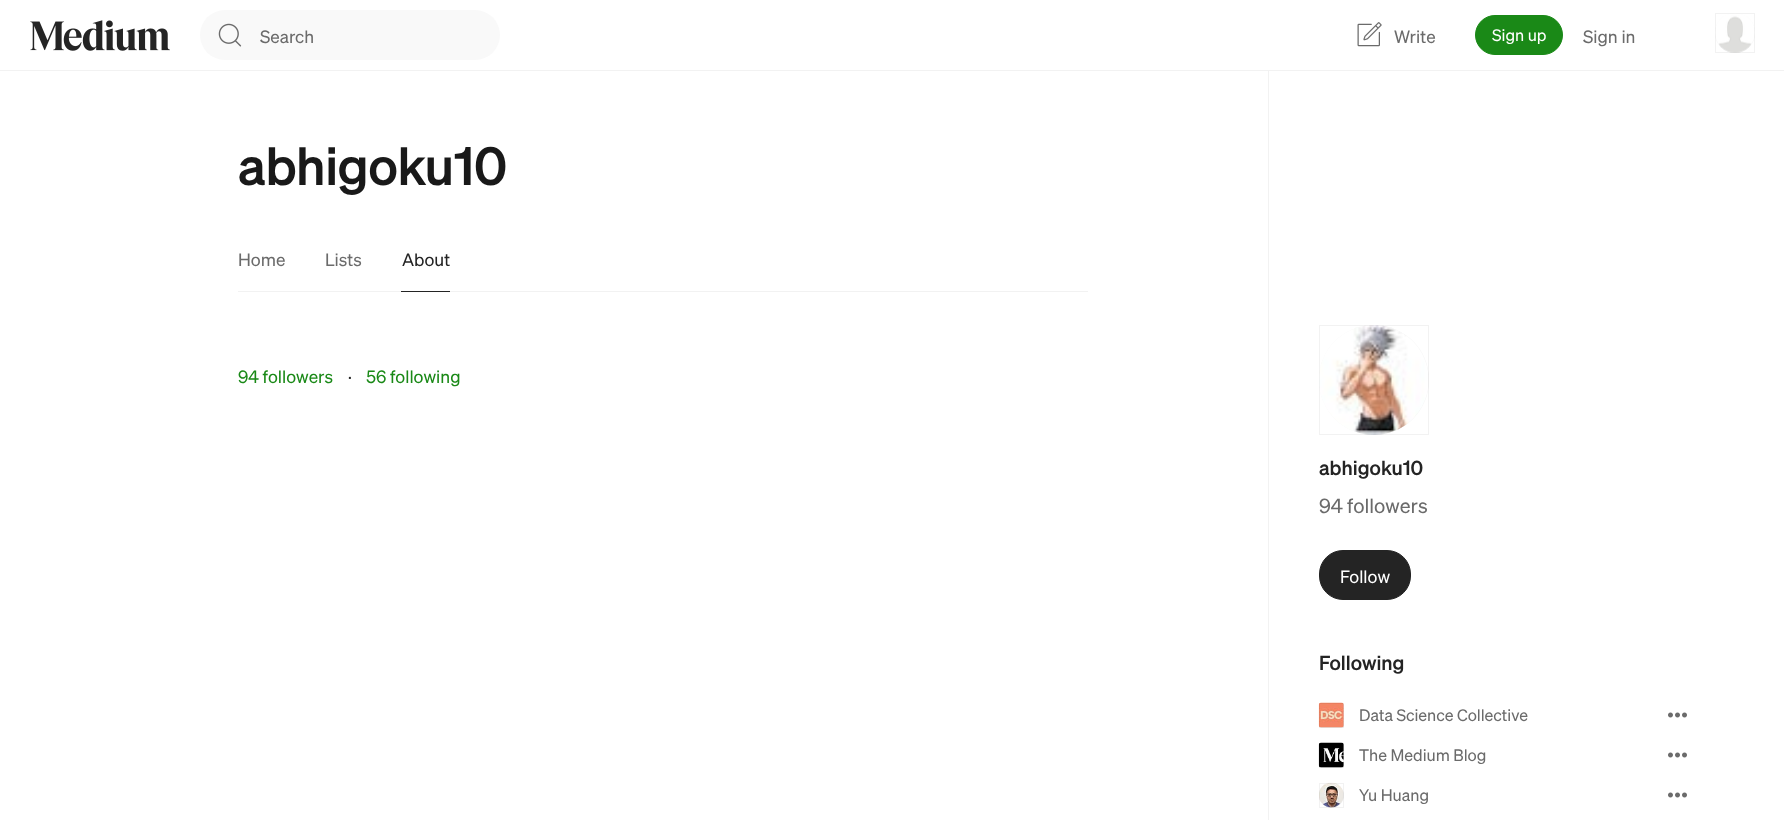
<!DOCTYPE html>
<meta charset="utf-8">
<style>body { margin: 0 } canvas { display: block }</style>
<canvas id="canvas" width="1784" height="820"></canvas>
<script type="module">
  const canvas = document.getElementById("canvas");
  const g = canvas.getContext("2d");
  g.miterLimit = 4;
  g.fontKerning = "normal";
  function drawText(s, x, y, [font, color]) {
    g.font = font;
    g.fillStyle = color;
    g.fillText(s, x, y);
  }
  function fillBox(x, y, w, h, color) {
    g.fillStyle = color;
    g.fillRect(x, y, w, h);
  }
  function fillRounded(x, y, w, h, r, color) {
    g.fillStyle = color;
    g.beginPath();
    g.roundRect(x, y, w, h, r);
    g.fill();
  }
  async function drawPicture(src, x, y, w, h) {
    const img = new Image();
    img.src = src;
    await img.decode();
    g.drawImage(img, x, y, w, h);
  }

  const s1 = ["italic 17.5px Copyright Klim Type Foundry", "#6B6B6B"];
  const s2 = ["italic 16.25px Copyright Klim Type Foundry", "#FFFFFF"];
  const s3 = ["italic 500 52.5px Copyright Klim Type Foundry", "#191919"];
  const s4 = ["italic 17.5px Copyright Klim Type Foundry", "#242424"];
  const s5 = ["italic 17.5px Copyright Klim Type Foundry", "#1A8917"];
  const s6 = ["italic 500 20px Copyright Klim Type Foundry", "#242424"];
  const s7 = ["italic 20px Copyright Klim Type Foundry", "#6B6B6B"];
  const s8 = ["italic 17.5px Copyright Klim Type Foundry", "#FFFFFF"];
  const s9 = ["italic 16.25px Copyright Klim Type Foundry", "#6B6B6B"];

  fillBox(0, 0, 1784, 820, "#FFFFFF");
  fillBox(0, 70, 1784, 1, "#F2F2F2");
  await drawPicture("pic1.png", 30, 20, 140, 31);
  fillRounded(200, 10, 300, 50, 25, "#F9F9F9");
  await drawPicture("pic2.png", 218, 23, 24, 24);
  drawText("Search", 260, 43, s1);
  await drawPicture("pic3.png", 1357, 22, 25, 25);
  drawText("Write", 1394, 43, s1);
  g.fillStyle = "#1A8917";
  g.beginPath();
  g.roundRect(1475.5, 15.5, 87, 39, 19.5);
  g.fill();
  g.strokeStyle = "#1A8917";
  g.stroke();
  drawText("Sign up", 1492, 41, s2);
  drawText("Sign in", 1583, 43, s1);
  g.fillStyle = "#F2F2F2";
  g.beginPath();
  g.arc(1735, 33, 20, 0, Math.PI * 2);
  g.fill();
  await drawPicture("pic4.png", 1715, 13, 40, 40);
  g.strokeStyle = "rgba(0, 0, 0, 0.05)";
  g.strokeRect(1715.5, 13.5, 39, 39);
  fillBox(238, 291, 850, 1, "#F2F2F2");
  g.letterSpacing = "-0.5px";
  drawText("abhigoku10", 238, 185, s3);
  g.letterSpacing = "0px";
  drawText("Home", 238, 266, s1);
  drawText("Lists", 325, 266, s1);
  fillBox(401, 291, 49, 1, "#242424");
  drawText("About", 402, 266, s4);
  drawText("94 followers", 238, 383, s5);
  drawText("·", 348, 383, s4);
  drawText("56 following", 366, 383, s5);
  fillBox(1268, 71, 1, 749, "#F2F2F2");
  g.beginPath();
  g.arc(1374, 380, 55, 0, Math.PI * 2);
  g.fill();
  await drawPicture("pic5.png", 1319, 325, 110, 110);
  g.strokeRect(1319.5, 325.5, 109, 109);
  drawText("abhigoku10", 1319, 475, s6);
  drawText("94 followers", 1319, 513, s7);
  g.fillStyle = "#242424";
  g.beginPath();
  g.roundRect(1319.5, 550.5, 91, 49, 23.5);
  g.fill();
  g.strokeStyle = "#242424";
  g.stroke();
  drawText("Follow", 1340, 583, s8);
  drawText("Following", 1319, 670, s6);
  fillRounded(1319, 703, 25, 25, 2.5, "#F2F2F2");
  await drawPicture("pic6.png", 1318, 702, 26, 26);
  g.strokeStyle = "rgba(0, 0, 0, 0.05)";
  g.strokeRect(1319.5, 703.5, 24, 24);
  drawText("Data Science Collective", 1359, 721, s9);
  await drawPicture("pic7.png", 1668, 712, 19, 6);
  fillRounded(1319, 743, 25, 25, 2.5, "#F2F2F2");
  await drawPicture("pic8.png", 1318, 742, 26, 26);
  g.strokeRect(1319.5, 743.5, 24, 24);
  drawText("The Medium Blog", 1359, 761, s9);
  await drawPicture("pic7.png", 1668, 752, 19, 6);
  g.fillStyle = "#F2F2F2";
  g.beginPath();
  g.arc(1331.5, 795.5, 12.5, 0, Math.PI * 2);
  g.fill();
  await drawPicture("pic9.png", 1319, 782, 25, 26);
  g.strokeRect(1319.5, 783.5, 24, 24);
  drawText("Yu Huang", 1359, 801, s9);
  await drawPicture("pic7.png", 1668, 792, 19, 6);
</script>
